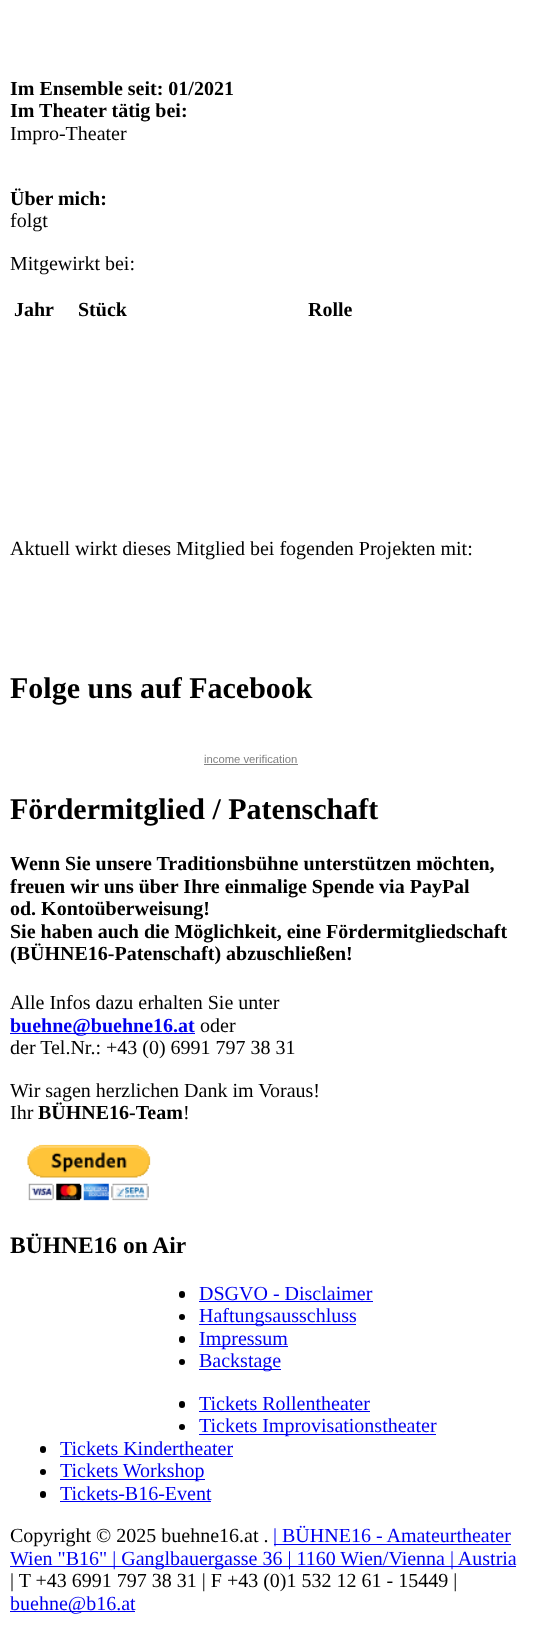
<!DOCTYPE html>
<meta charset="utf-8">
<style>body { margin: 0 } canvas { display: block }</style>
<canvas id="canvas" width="544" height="1634"></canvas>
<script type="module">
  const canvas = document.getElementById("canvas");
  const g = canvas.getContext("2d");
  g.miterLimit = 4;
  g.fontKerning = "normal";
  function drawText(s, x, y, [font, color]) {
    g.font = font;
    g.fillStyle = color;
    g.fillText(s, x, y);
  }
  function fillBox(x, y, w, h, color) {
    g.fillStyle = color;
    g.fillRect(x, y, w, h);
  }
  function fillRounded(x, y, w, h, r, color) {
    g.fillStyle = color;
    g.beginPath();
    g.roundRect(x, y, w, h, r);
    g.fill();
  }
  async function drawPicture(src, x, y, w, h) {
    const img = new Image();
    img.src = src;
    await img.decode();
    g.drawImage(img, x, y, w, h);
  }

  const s1 = ["bold 20px Liberation Serif", "#000000"];
  const s2 = ["20px Liberation Serif", "#000000"];
  const s3 = ["bold 30px Liberation Serif", "#000000"];
  const s4 = ["11.25px Liberation Sans", "#808080"];
  const s5 = ["bold 20px Liberation Serif", "#0000EE"];
  const s6 = ["bold 23.5px Liberation Serif", "#000000"];
  const s7 = ["20px Liberation Serif", "#0000EE"];

  fillBox(0, 0, 544, 1634, "#FFFFFF");
  drawText("Im Ensemble seit: 01/2021", 10, 95, s1);
  drawText("Im Theater tätig bei:", 10, 117, s1);
  drawText("Impro-Theater", 10, 140, s2);
  drawText("Über mich:", 10, 205, s1);
  drawText("folgt", 10, 227, s2);
  drawText("Mitgewirkt bei:", 10, 270, s2);
  drawText("Jahr", 14, 316, s1);
  drawText("Stück", 78, 316, s1);
  drawText("Rolle", 308, 316, s1);
  drawText("Aktuell wirkt dieses Mitglied bei fogenden Projekten mit:", 10, 555, s2);
  drawText("Folge uns auf Facebook", 10, 698, s3);
  drawText("income verification", 204, 763, s4);
  fillBox(204, 764, 94, 1, "#808080");
  drawText("Fördermitglied / Patenschaft", 10, 819, s3);
  drawText("Wenn Sie unsere Traditionsbühne unterstützen möchten,", 10, 870, s1);
  drawText("freuen wir uns über Ihre einmalige Spende via PayPal", 10, 893, s1);
  drawText("od. Kontoüberweisung!", 10, 915, s1);
  drawText("Sie haben auch die Möglichkeit, eine Fördermitgliedschaft", 10, 938, s1);
  drawText("(BÜHNE16-Patenschaft) abzuschließen!", 10, 960, s1);
  drawText("Alle Infos dazu erhalten Sie unter", 10, 1009, s2);
  fillBox(10, 1033, 185, 1, "#0000EE");
  drawText("buehne@buehne16.at", 10, 1032, s5);
  drawText("oder", 200, 1032, s2);
  drawText("der Tel.Nr.: +43 (0) 6991 797 38 31", 10, 1054, s2);
  drawText("Wir sagen herzlichen Dank im Voraus!", 10, 1097, s2);
  drawText("Ihr", 10, 1119, s2);
  drawText("BÜHNE16-Team", 38, 1119, s1);
  drawText("!", 183, 1119, s2);
  await drawPicture("pic1.png", 27, 1144, 124, 57);
  drawText("BÜHNE16 on Air", 10, 1253, s6);
  fillRounded(179, 1291, 6, 7, 3, "#000000");
  drawText("DSGVO - Disclaimer", 199, 1300, s7);
  fillBox(199, 1301, 174, 1, "#0000EE");
  g.fillStyle = "#000000";
  g.beginPath();
  g.arc(182, 1317, 3, 0, Math.PI * 2);
  g.fill();
  fillBox(199, 1324, 157, 1, "#0000EE");
  drawText("Haftungsausschluss", 199, 1322, s7);
  fillRounded(179, 1336, 6, 7, 3, "#000000");
  fillBox(199, 1346, 89, 1, "#0000EE");
  drawText("Impressum", 199, 1345, s7);
  g.fillStyle = "#000000";
  g.beginPath();
  g.arc(182, 1362, 3, 0, Math.PI * 2);
  g.fill();
  fillBox(199, 1369, 82, 1, "#0000EE");
  drawText("Backstage", 199, 1367, s7);
  fillRounded(179, 1401, 6, 7, 3, "#000000");
  drawText("Tickets Rollentheater", 199, 1410, s7);
  fillBox(199, 1411, 171, 1, "#0000EE");
  g.fillStyle = "#000000";
  g.beginPath();
  g.arc(182, 1427, 3, 0, Math.PI * 2);
  g.fill();
  fillBox(199, 1434, 237, 1, "#0000EE");
  drawText("Tickets Improvisationstheater", 199, 1432, s7);
  fillRounded(40, 1446, 6, 7, 3, "#000000");
  drawText("Tickets Kindertheater", 60, 1455, s7);
  fillBox(60, 1456, 173, 1, "#0000EE");
  g.fillStyle = "#000000";
  g.beginPath();
  g.arc(43, 1472, 3, 0, Math.PI * 2);
  g.fill();
  fillBox(60, 1479, 145, 1, "#0000EE");
  drawText("Tickets Workshop", 60, 1477, s7);
  fillRounded(40, 1491, 6, 7, 3, "#000000");
  drawText("Tickets-B16-Event", 60, 1500, s7);
  fillBox(60, 1501, 151, 1, "#0000EE");
  drawText("Copyright © 2025 buehne16.at .", 10, 1542, s2);
  fillBox(274, 1544, 237, 1, "#0000EE");
  drawText("| BÜHNE16 - Amateurtheater", 273, 1542, s7);
  fillBox(10, 1566, 506, 1, "#0000EE");
  drawText("Wien \"B16\" | Ganglbauergasse 36 | 1160 Wien/Vienna | Austria", 10, 1565, s7);
  drawText("| T +43 6991 797 38 31 | F +43 (0)1 532 12 61 - 15449 |", 10, 1587, s2);
  fillBox(10, 1611, 125, 1, "#0000EE");
  drawText("buehne@b16.at", 10, 1610, s7);
</script>
